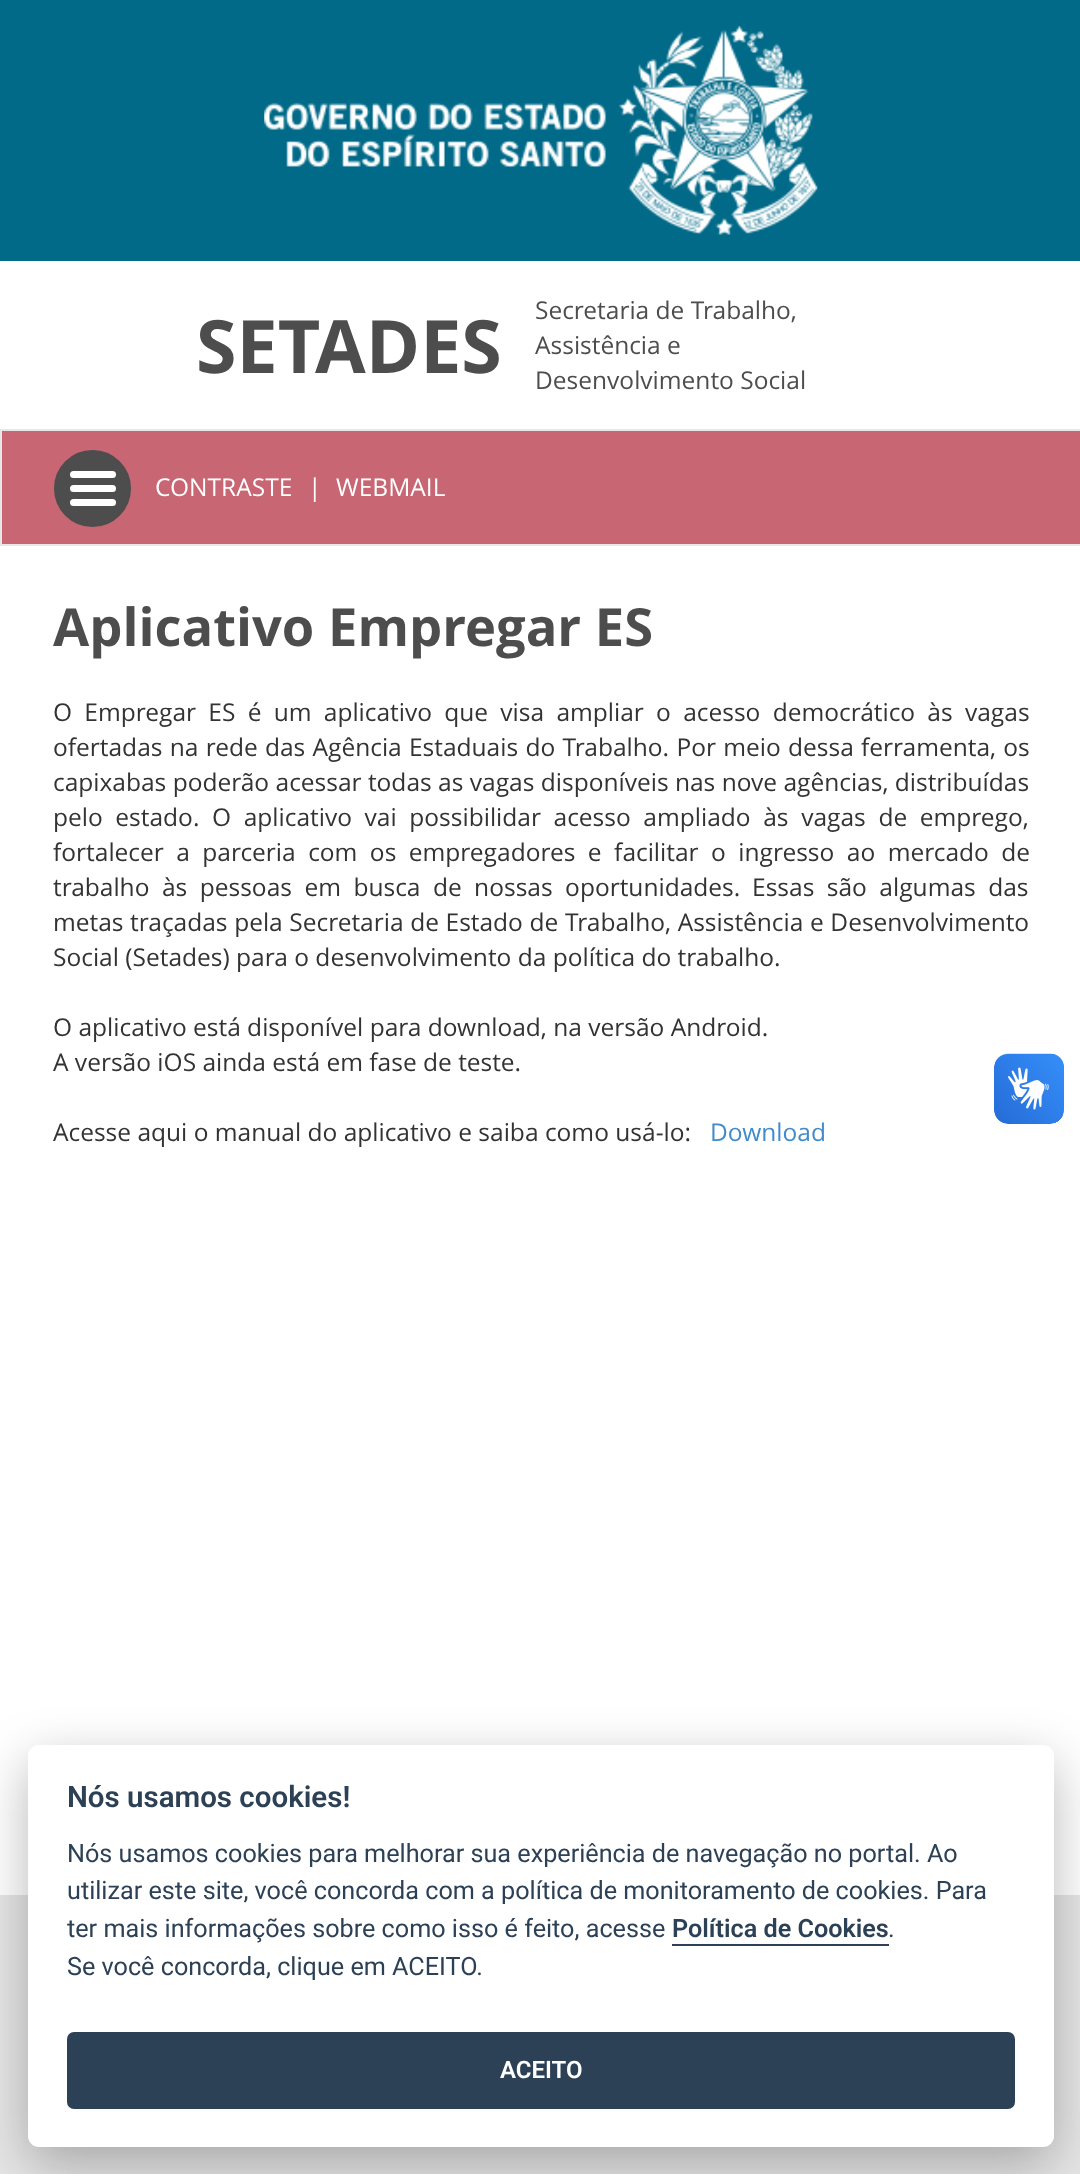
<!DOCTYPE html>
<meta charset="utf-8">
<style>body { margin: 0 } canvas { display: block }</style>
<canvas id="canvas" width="1080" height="2174"></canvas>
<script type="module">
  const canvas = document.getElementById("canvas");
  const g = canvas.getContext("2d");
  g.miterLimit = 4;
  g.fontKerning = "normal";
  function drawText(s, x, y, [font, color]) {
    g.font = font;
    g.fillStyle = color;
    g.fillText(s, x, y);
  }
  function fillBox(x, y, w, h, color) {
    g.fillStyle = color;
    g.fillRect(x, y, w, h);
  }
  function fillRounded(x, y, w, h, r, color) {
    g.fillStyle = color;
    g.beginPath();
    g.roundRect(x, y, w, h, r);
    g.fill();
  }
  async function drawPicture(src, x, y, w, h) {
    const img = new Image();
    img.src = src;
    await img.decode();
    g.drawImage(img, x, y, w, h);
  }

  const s1 = ["bold 73.5px Open Sans", "#4D4D4D"];
  const s2 = ["24.5px Open Sans", "#4D4D4D"];
  const s3 = ["24.5px Open Sans", "#FFFFFF"];
  const s4 = ["bold 52.5px Open Sans", "#4D4D4D"];
  const s5 = ["24.5px Open Sans", "#333333"];
  const s6 = ["24.5px Open Sans", "#428BCA"];
  const s7 = ["600 29.5px Roboto", "#2D4156"];
  const s8 = ["25.2px Roboto", "#2D4156"];
  const s9 = ["600 25.2px Roboto", "#2D4156"];
  const s10 = ["600 24px Roboto", "#FFFFFF"];

  fillBox(0, 0, 1080, 2174, "#FFFFFF");
  fillBox(0, 0, 1080, 261, "#006A88");
  await drawPicture("pic1.png", 264, 26, 554, 209);
  drawText("SETADES", 196, 373, s1);
  drawText("Secretaria de Trabalho,", 535, 319, s2);
  drawText("Assistência e", 535, 354, s2);
  drawText("Desenvolvimento Social", 535, 389, s2);
  g.fillStyle = "#C86673";
  g.beginPath();
  g.rect(1, 430, 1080, 115);
  g.fill();
  g.strokeStyle = "#E7E7E7";
  g.lineWidth = 2;
  g.stroke();
  g.fillStyle = "#4D4D4D";
  g.beginPath();
  g.arc(92.5, 488.5, 37.5, 0, Math.PI * 2);
  g.fill();
  g.strokeStyle = "#4D4D4D";
  g.stroke();
  fillRounded(70, 471, 46, 7, 3.5, "#FFFFFF");
  fillRounded(70, 485, 46, 7, 3.5, "#FFFFFF");
  fillRounded(70, 499, 46, 7, 3.5, "#FFFFFF");
  drawText("CONTRASTE", 155, 496, s3);
  drawText("|", 308, 496, s3);
  drawText("WEBMAIL", 336, 496, s3);
  drawText("Aplicativo Empregar ES", 53, 646, s4);
  g.wordSpacing = "5.9px";
  drawText("O Empregar ES é um aplicativo que visa ampliar o acesso democrático às vagas", 53, 721, s5);
  g.wordSpacing = "0.9px";
  drawText("ofertadas na rede das Agência Estaduais do Trabalho. Por meio dessa ferramenta, os", 53, 756, s5);
  g.wordSpacing = "0px";
  drawText("capixabas poderão acessar todas as vagas disponíveis nas nove agências, distribuídas", 53, 791, s5);
  g.wordSpacing = "6.25px";
  drawText("pelo estado. O aplicativo vai possibilidar acesso ampliado às vagas de emprego,", 53, 826, s5);
  g.wordSpacing = "6.1px";
  drawText("fortalecer a parceria com os empregadores e facilitar o ingresso ao mercado de", 53, 861, s5);
  drawText("trabalho às pessoas em busca de nossas oportunidades.", 53, 896, s5);
  drawText("Essas são algumas das", 752, 896, s5);
  g.wordSpacing = "0.25px";
  drawText("metas traçadas pela Secretaria de Estado de Trabalho, Assistência e Desenvolvimento", 53, 931, s5);
  g.wordSpacing = "0px";
  drawText("Social (Setades) para o desenvolvimento da política do trabalho.", 53, 966, s5);
  drawText("O aplicativo está disponível para download, na versão Android.", 53, 1036, s5);
  drawText("A versão iOS ainda está em fase de teste.", 53, 1071, s5);
  drawText("Acesse aqui o manual do aplicativo e saiba como usá-lo:", 53, 1141, s5);
  drawText("Download", 710, 1141, s6);
  fillBox(0, 1895, 1080, 279, "#E6E6E6");
  await drawPicture("pic2.png", 994, 1053, 70, 71);
  await drawPicture("pic3.png", 994, 1054, 70, 70);
  g.fillStyle = "rgba(2, 2, 3, 0.28)";
  g.filter = "blur(26px)";
  g.beginPath();
  g.roundRect(28, 1762, 1026, 403, 11);
  g.fill();
  g.filter = "none";
  fillRounded(28, 1745, 1026, 402, 11, "#FFFFFF");
  drawText("Nós usamos cookies!", 67, 1807, s7);
  drawText("Nós usamos cookies para melhorar sua experiência de navegação no portal. Ao", 67, 1862, s8);
  drawText("utilizar este site, você concorda com a política de monitoramento de cookies. Para", 67, 1899, s8);
  drawText("ter mais informações sobre como isso é feito, acesse", 67, 1937, s8);
  drawText("Política de Cookies", 672, 1937, s9);
  fillBox(672, 1944, 217, 2, "#2D4156");
  drawText(".", 888, 1937, s8);
  drawText("Se você concorda, clique em ACEITO.", 67, 1975, s8);
  fillRounded(67, 2032, 948, 77, 7, "#2D4156");
  drawText("ACEITO", 500, 2078, s10);
</script>
